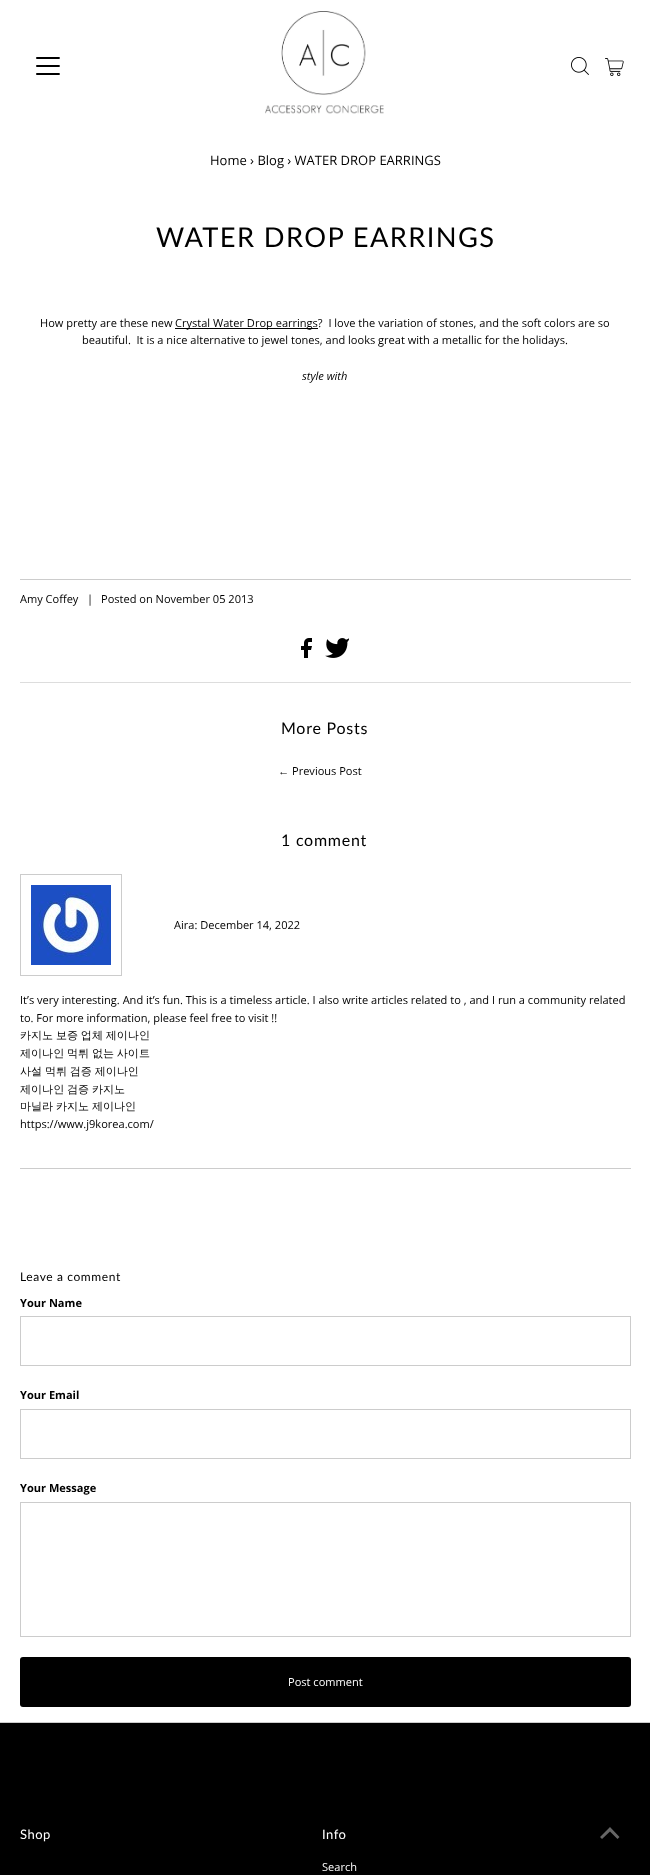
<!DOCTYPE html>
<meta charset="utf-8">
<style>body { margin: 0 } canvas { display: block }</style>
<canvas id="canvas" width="650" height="1875"></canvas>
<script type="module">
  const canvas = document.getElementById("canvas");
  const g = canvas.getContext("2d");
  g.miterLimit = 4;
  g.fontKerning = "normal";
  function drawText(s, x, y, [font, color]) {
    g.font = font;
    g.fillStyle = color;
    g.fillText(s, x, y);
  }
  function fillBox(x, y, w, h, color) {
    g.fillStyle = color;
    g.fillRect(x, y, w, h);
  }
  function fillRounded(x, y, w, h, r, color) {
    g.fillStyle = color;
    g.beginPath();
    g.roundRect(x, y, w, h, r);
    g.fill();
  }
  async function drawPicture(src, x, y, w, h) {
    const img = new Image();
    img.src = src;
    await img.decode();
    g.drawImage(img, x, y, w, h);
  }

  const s1 = ["13px Open Sans", "#000000"];
  const s2 = ["27.25px Lato", "#000000"];
  const s3 = ["11.05px Open Sans", "#000000"];
  const s4 = ["italic 11.05px Open Sans", "#000000"];
  const s5 = ["16px Lato", "#000000"];
  const s6 = ["11.05px Liberation Serif", "#000000"];
  const s7 = ["500 11.05px WenQuanYi Zen Hei", "#000000"];
  const s8 = ["12px Lato", "#000000"];
  const s9 = ["bold 11.05px Open Sans", "#000000"];
  const s10 = ["11.05px Open Sans", "#FFFFFF"];
  const s11 = ["13px Lato", "#FFFFFF"];

  fillBox(0, 0, 650, 1875, "#FFFFFF");
  await drawPicture("pic1.png", 36, 57, 24, 18);
  await drawPicture("pic2.png", 265, 11, 119, 103);
  await drawPicture("pic3.png", 571, 57, 18, 18);
  await drawPicture("pic4.png", 605, 58, 19, 18);
  drawText("Home › Blog › WATER DROP EARRINGS", 210, 165, s1);
  g.letterSpacing = "1.4px";
  drawText("WATER DROP EARRINGS", 156, 247, s2);
  fillBox(20, 579, 611, 1, "#CCCCCC");
  g.letterSpacing = "0px";
  drawText("How pretty are these new", 40, 327, s3);
  fillBox(175, 328, 143, 1, "#000000");
  drawText("Crystal Water Drop earrings?  I love the variation of stones, and the soft colors are so", 175, 327, s3);
  drawText("beautiful.  It is a nice alternative to jewel tones, and looks great with a metallic for the holidays.", 82, 344, s3);
  drawText("style with", 302, 380, s4);
  drawText("Amy Coffey", 20, 603, s3);
  drawText("|", 87, 603, s3);
  drawText("Posted on November 05 2013", 101, 603, s3);
  fillBox(20, 682, 611, 1, "#DDDDDD");
  await drawPicture("pic5.png", 301, 638, 11, 20);
  await drawPicture("pic6.png", 325, 638, 24, 20);
  g.letterSpacing = "0.75px";
  drawText("More Posts", 281, 734, s5);
  g.letterSpacing = "0px";
  drawText("←", 278, 775, s6);
  drawText("Previous Post", 292, 775, s3);
  g.letterSpacing = "0.75px";
  drawText("1 comment", 281, 846, s5);
  fillBox(20, 1168, 611, 1, "#CCCCCC");
  g.strokeStyle = "#CCCCCC";
  g.strokeRect(20.5, 874.5, 101, 101);
  await drawPicture("pic7.png", 31, 885, 80, 80);
  g.letterSpacing = "0px";
  drawText("Aira: December 14, 2022", 174, 929, s3);
  drawText("It’s very interesting. And it’s fun. This is a timeless article. I also write articles related to , and I run a community related", 20, 1004, s3);
  drawText("to. For more information, please feel free to visit !!", 20, 1022, s3);
  g.wordSpacing = "-0.5px";
  drawText("카지노 보증 업체 제이나인", 20, 1039, s7);
  drawText("제이나인 먹튀 없는 사이트", 20, 1057, s7);
  drawText("사설 먹튀 검증 제이나인", 20, 1075, s7);
  drawText("제이나인 검증 카지노", 20, 1093, s7);
  drawText("마닐라 카지노 제이나인", 20, 1110, s7);
  g.wordSpacing = "0px";
  drawText("https://www.j9korea.com/", 20, 1128, s3);
  g.letterSpacing = "0.6px";
  drawText("Leave a comment", 20, 1281, s8);
  g.letterSpacing = "0px";
  drawText("Your Name", 20, 1307, s9);
  g.strokeRect(20.5, 1316.5, 610, 49);
  drawText("Your Email", 20, 1399, s9);
  g.strokeRect(20.5, 1409.5, 610, 49);
  drawText("Your Message", 20, 1492, s9);
  g.strokeRect(20.5, 1502.5, 610, 134);
  fillRounded(20, 1657, 611, 50, 3, "#000000");
  drawText("Post comment", 288, 1686, s10);
  fillBox(0, 1723, 650, 152, "#000000");
  fillBox(0, 1722, 650, 1, "#CCCCCC");
  g.letterSpacing = "0.5px";
  drawText("Shop", 20, 1839, s11);
  drawText("Info", 322, 1839, s11);
  g.letterSpacing = "0px";
  drawText("Search", 322, 1871, s10);
  g.fillStyle = "#666666";
  g.beginPath();
  g.moveTo(610, 1827);
  g.lineTo(600, 1837);
  g.lineTo(602, 1839);
  g.lineTo(610, 1831.5);
  g.lineTo(617.5, 1839);
  g.lineTo(619.5, 1837);
  g.closePath();
  g.fill();
</script>
